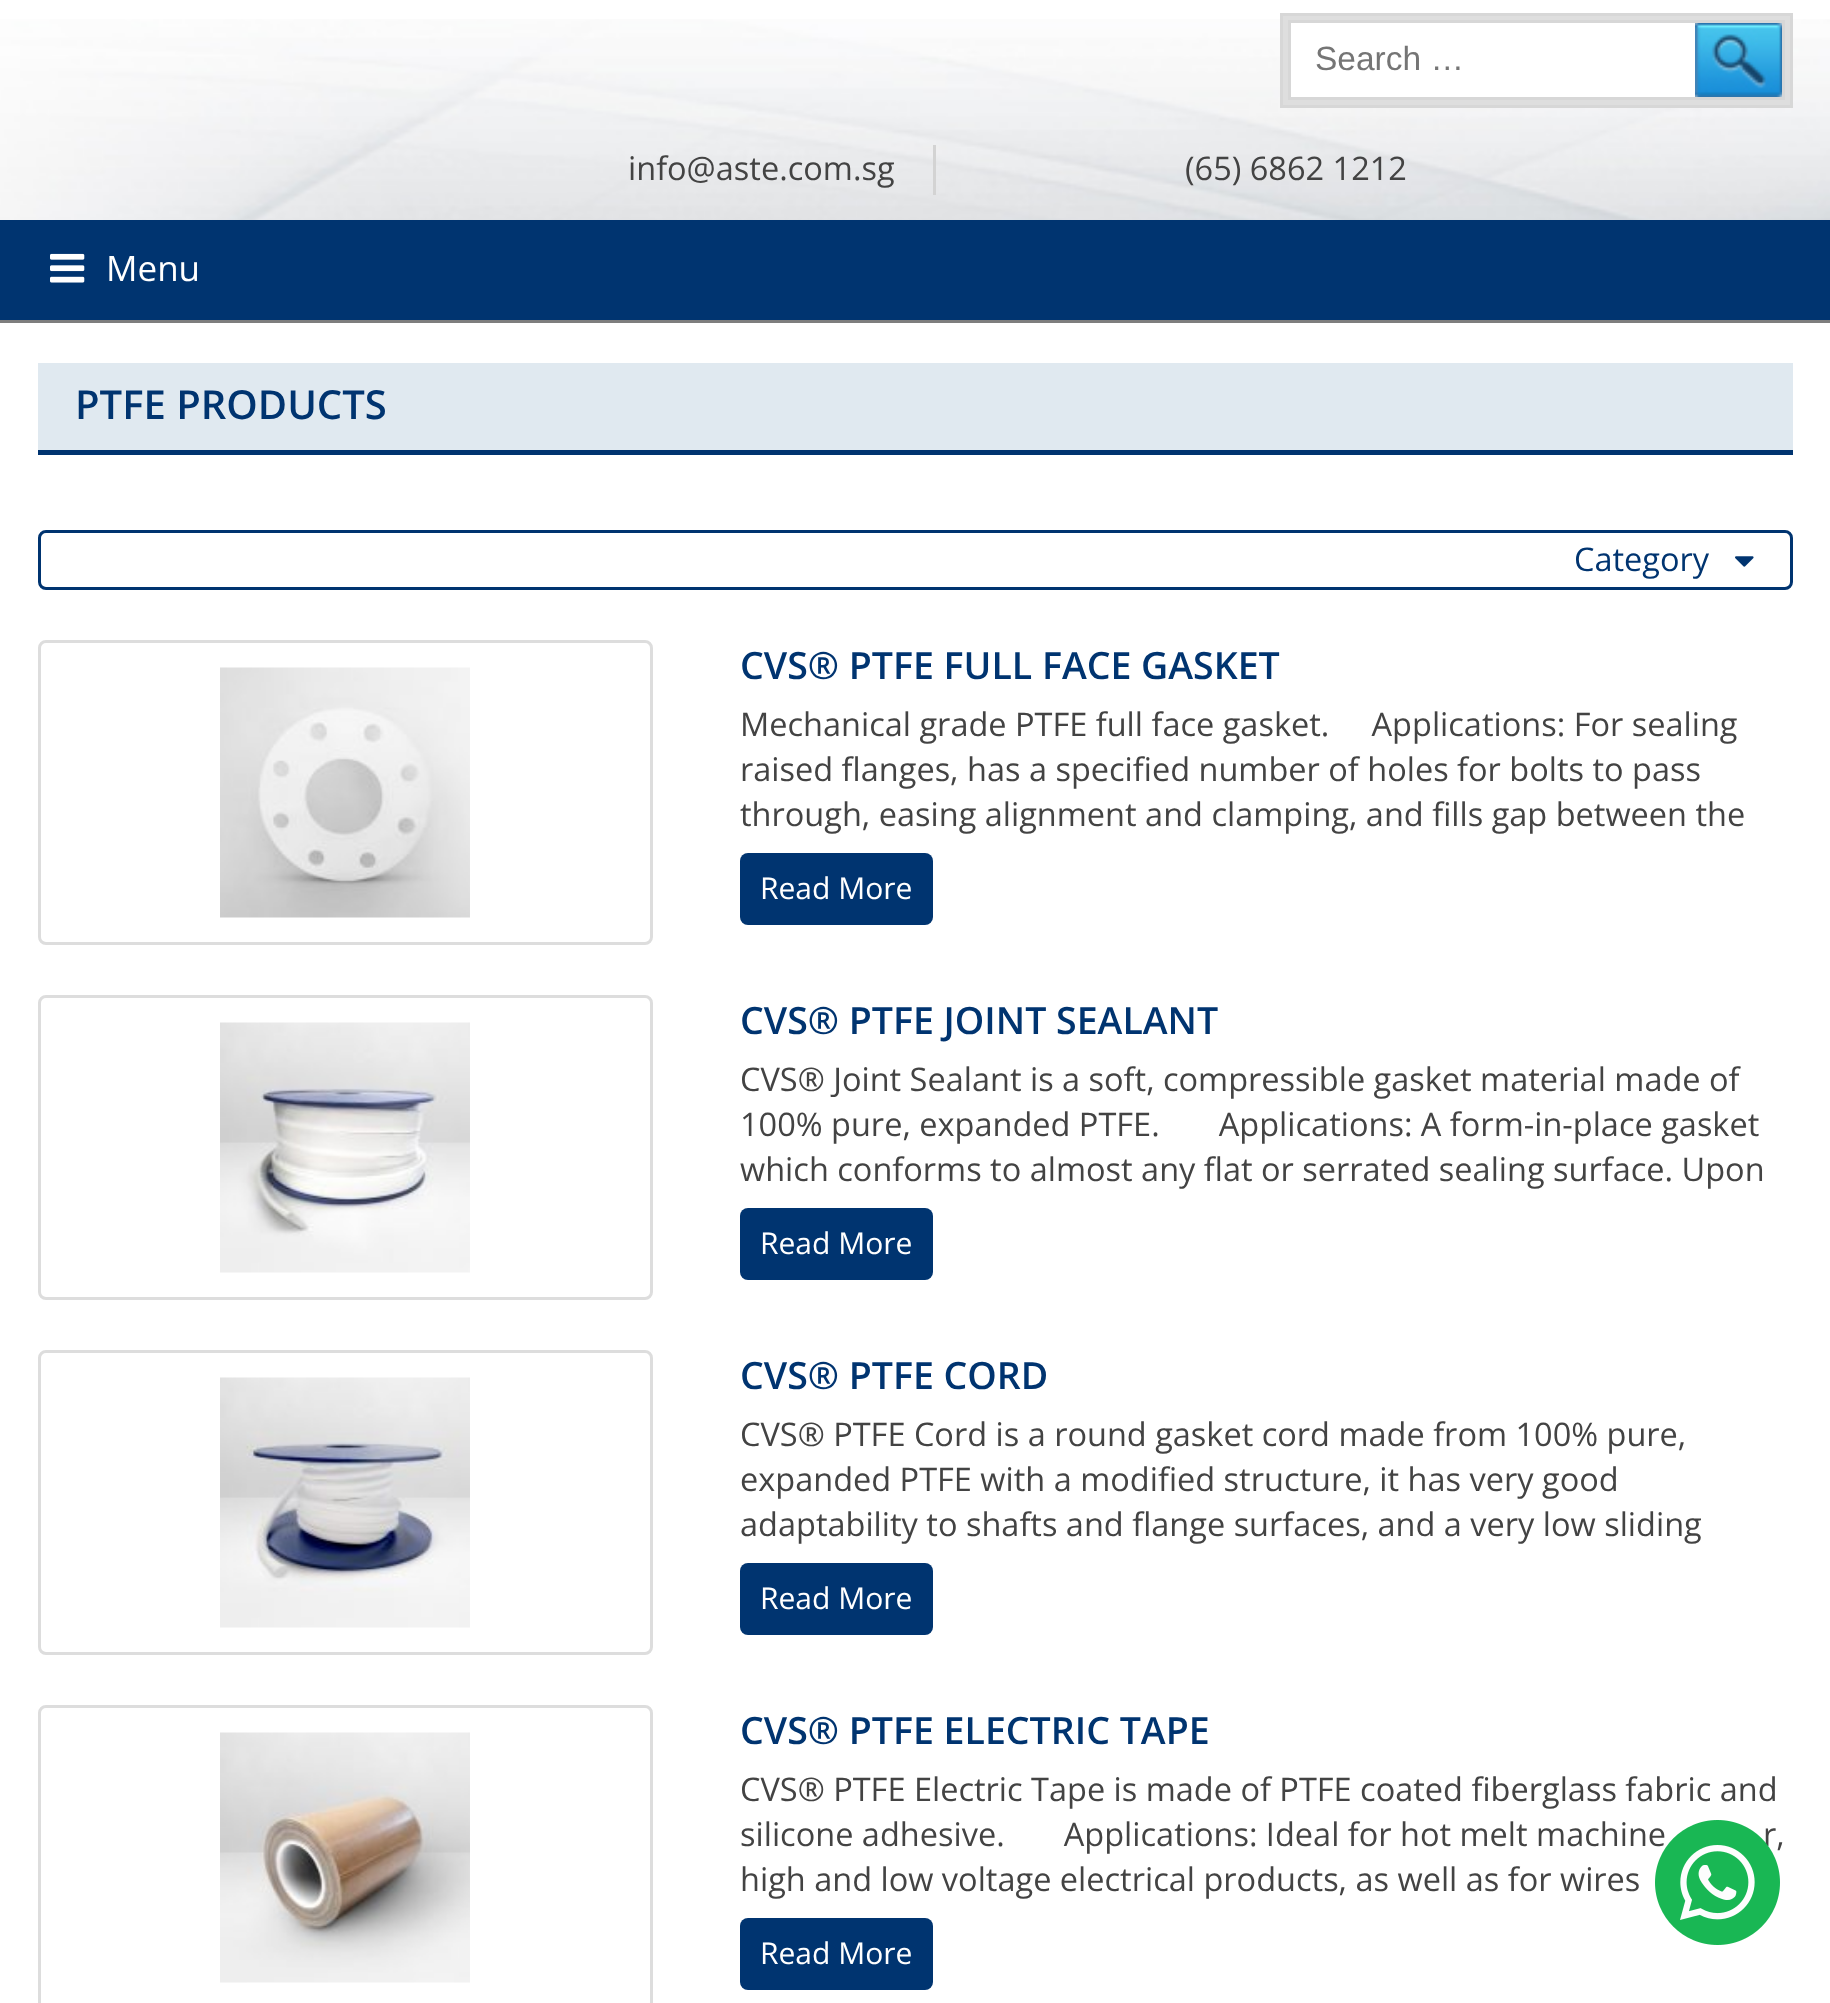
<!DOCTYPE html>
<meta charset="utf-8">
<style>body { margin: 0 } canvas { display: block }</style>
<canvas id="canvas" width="1830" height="2003"></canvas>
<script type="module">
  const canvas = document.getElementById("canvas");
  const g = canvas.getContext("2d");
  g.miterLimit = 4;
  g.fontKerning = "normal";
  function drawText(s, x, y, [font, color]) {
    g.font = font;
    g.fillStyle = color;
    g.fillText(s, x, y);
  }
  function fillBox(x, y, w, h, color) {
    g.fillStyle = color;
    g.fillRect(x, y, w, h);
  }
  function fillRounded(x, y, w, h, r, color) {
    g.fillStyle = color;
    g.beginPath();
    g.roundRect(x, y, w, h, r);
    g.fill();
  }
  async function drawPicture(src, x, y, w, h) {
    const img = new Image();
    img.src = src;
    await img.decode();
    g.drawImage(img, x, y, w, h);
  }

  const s1 = ["33.5px Liberation Sans", "#757575"];
  const s2 = ["32.5px Open Sans", "#434343"];
  const s3 = ["35px Open Sans", "#FFFFFF"];
  const s4 = ["600 40px Open Sans", "#003470"];
  const s5 = ["32.5px Open Sans", "#003470"];
  const s6 = ["600 37.5px Open Sans", "#003470"];
  const s7 = ["30px Open Sans", "#FFFFFF"];

  fillBox(0, 0, 1830, 2003, "#FFFFFF");
  await drawPicture("pic1.png", 0, 19, 1830, 201);
  fillBox(0, 320, 1830, 3, "#7E7E7E");
  g.fillStyle = "#DEDEDE";
  g.beginPath();
  g.rect(1281.5, 14.5, 510, 92);
  g.fill();
  g.strokeStyle = "#D7D7D7";
  g.lineWidth = 3;
  g.stroke();
  fillBox(1291, 23, 404, 74, "#FFFFFF");
  await drawPicture("pic2.png", 1695, 23, 87, 74);
  g.strokeRect(1289.5, 21.5, 494, 77);
  drawText("Search …", 1315, 70, s1);
  fillBox(933, 145, 3, 50, "#D3D3D3");
  drawText("info@aste.com.sg", 628, 180, s2);
  drawText("(65) 6862 1212", 1185, 180, s2);
  fillBox(0, 220, 1830, 100, "#003470");
  await drawPicture("pic3.png", 50, 253, 35, 30);
  drawText("Menu", 106, 281, s3);
  fillBox(38, 363, 1755, 87, "#E0E9F0");
  fillBox(38, 450, 1755, 5, "#003470");
  drawText("PTFE PRODUCTS", 75, 419, s4);
  g.beginPath();
  g.roundRect(39.5, 531.5, 1752, 57, 6.5);
  g.strokeStyle = "#003470";
  g.stroke();
  drawText("Category", 1574, 571, s5);
  await drawPicture("pic4.png", 1735, 556, 19, 11);
  g.beginPath();
  g.roundRect(39.5, 641.5, 612, 302, 6.5);
  g.strokeStyle = "#DDDDDD";
  g.stroke();
  await drawPicture("pic5.png", 220, 667, 250, 251);
  drawText("CVS® PTFE FULL FACE GASKET", 740, 679, s6);
  drawText("Mechanical grade PTFE full face gasket.     Applications: For sealing", 740, 736, s2);
  drawText("raised flanges, has a specified number of holes for bolts to pass", 740, 781, s2);
  drawText("through, easing alignment and clamping, and fills gap between the", 740, 826, s2);
  fillRounded(740, 853, 193, 72, 8, "#003470");
  drawText("Read More", 760, 899, s7);
  g.beginPath();
  g.roundRect(39.5, 996.5, 612, 302, 6.5);
  g.stroke();
  await drawPicture("pic6.png", 220, 1022, 250, 251);
  drawText("CVS® PTFE JOINT SEALANT", 740, 1034, s6);
  drawText("CVS® Joint Sealant is a soft, compressible gasket material made of", 740, 1091, s2);
  drawText("100% pure, expanded PTFE.       Applications: A form-in-place gasket", 740, 1136, s2);
  drawText("which conforms to almost any flat or serrated sealing surface. Upon", 740, 1181, s2);
  fillRounded(740, 1208, 193, 72, 8, "#003470");
  drawText("Read More", 760, 1254, s7);
  g.beginPath();
  g.roundRect(39.5, 1351.5, 612, 302, 6.5);
  g.stroke();
  await drawPicture("pic7.png", 220, 1377, 250, 251);
  drawText("CVS® PTFE CORD", 740, 1389, s6);
  drawText("CVS® PTFE Cord is a round gasket cord made from 100% pure,", 740, 1446, s2);
  drawText("expanded PTFE with a modified structure, it has very good", 740, 1491, s2);
  drawText("adaptability to shafts and flange surfaces, and a very low sliding", 740, 1536, s2);
  fillRounded(740, 1563, 193, 72, 8, "#003470");
  drawText("Read More", 760, 1609, s7);
  g.beginPath();
  g.roundRect(39.5, 1706.5, 612, 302, 6.5);
  g.stroke();
  await drawPicture("pic8.png", 220, 1732, 250, 251);
  drawText("CVS® PTFE ELECTRIC TAPE", 740, 1744, s6);
  drawText("CVS® PTFE Electric Tape is made of PTFE coated fiberglass fabric and", 740, 1801, s2);
  drawText("silicone adhesive.       Applications: Ideal for hot melt machine", 740, 1846, s2);
  drawText("r,", 1763, 1846, s2);
  drawText("high and low voltage electrical products, as well as for wires", 740, 1891, s2);
  fillRounded(740, 1918, 193, 72, 8, "#003470");
  drawText("Read More", 760, 1964, s7);
  await drawPicture("pic9.png", 1655, 1820, 125, 125);
</script>
